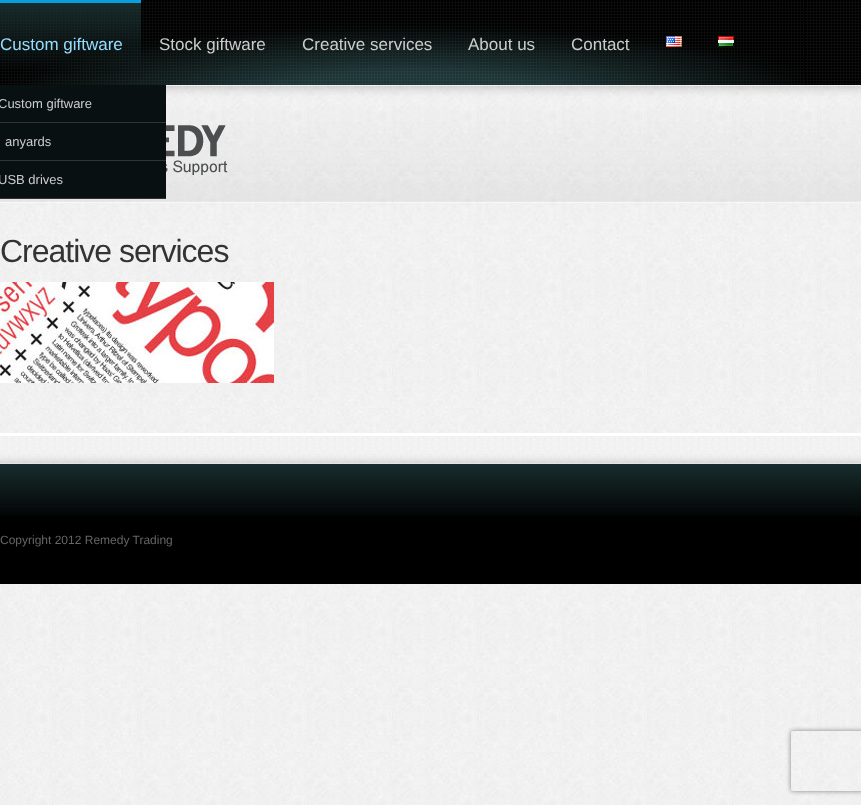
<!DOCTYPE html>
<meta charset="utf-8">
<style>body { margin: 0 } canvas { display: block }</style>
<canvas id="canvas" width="861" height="805"></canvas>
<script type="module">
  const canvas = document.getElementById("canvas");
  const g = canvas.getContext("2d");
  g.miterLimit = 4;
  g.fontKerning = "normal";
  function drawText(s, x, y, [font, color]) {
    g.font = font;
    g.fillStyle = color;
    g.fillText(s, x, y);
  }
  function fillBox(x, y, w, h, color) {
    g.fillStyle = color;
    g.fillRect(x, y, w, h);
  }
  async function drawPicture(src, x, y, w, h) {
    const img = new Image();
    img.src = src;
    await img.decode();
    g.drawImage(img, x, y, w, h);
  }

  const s1 = ["17px Liberation Sans", "#96DDFC"];
  const s2 = ["13px Liberation Sans", "#CCCCCC"];
  const s3 = ["17px Liberation Sans", "#CCCCCC"];
  const s4 = ["32px Liberation Sans", "#333333"];
  const s5 = ["12px Liberation Sans", "#666666"];

  fillBox(0, 0, 861, 805, "#FFFFFF");
  await drawPicture("pic1.png", 0, 0, 861, 805);
  await drawPicture("pic2.png", 0, 0, 861, 203);
  await drawPicture("pic3.png", 0, 0, 805, 85);
  await drawPicture("pic4.png", 0, 0, 141, 68);
  drawText("Custom giftware", 0, 50, s1);
  fillBox(0, 85, 166, 37, "#091011");
  fillBox(0, 122, 166, 1, "#333333");
  drawText("Custom giftware", -2, 108, s2);
  fillBox(0, 123, 166, 37, "#091011");
  fillBox(0, 160, 166, 1, "#333333");
  drawText("anyards", 5, 146, s2);
  fillBox(0, 161, 166, 37, "#091011");
  fillBox(0, 198, 166, 1, "#333333");
  drawText("USB drives", -2, 184, s2);
  drawText("Stock giftware", 159, 50, s3);
  drawText("Creative services", 302, 50, s3);
  drawText("About us", 468, 50, s3);
  drawText("Contact", 571, 50, s3);
  await drawPicture("pic5.png", 666, 36, 16, 11);
  await drawPicture("pic6.png", 718, 36, 16, 11);
  await drawPicture("pic7.png", 166, 125, 62, 50);
  g.letterSpacing = "-1px";
  drawText("Creative services", 0, 262, s4);
  await drawPicture("pic8.png", 0, 282, 274, 101);
  fillBox(0, 433, 861, 3, "#FFFFFF");
  fillBox(0, 516, 861, 68, "#000000");
  await drawPicture("pic9.png", 0, 436, 861, 80);
  fillBox(0, 506, 861, 1, "#090E0F");
  g.letterSpacing = "0px";
  drawText("Copyright 2012 Remedy Trading", 0, 544, s5);
  g.save();
  g.beginPath();
  g.moveTo(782, 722);
  g.lineTo(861, 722);
  g.lineTo(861, 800);
  g.lineTo(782, 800);
  g.closePath();
  g.moveTo(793, 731);
  g.lineTo(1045, 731);
  g.bezierCurveTo(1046, 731, 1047, 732, 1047, 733);
  g.lineTo(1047, 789);
  g.bezierCurveTo(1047, 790, 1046, 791, 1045, 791);
  g.lineTo(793, 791);
  g.bezierCurveTo(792, 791, 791, 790, 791, 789);
  g.lineTo(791, 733);
  g.bezierCurveTo(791, 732, 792, 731, 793, 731);
  g.closePath();
  g.clip("evenodd");
  g.fillStyle = "#808080";
  g.filter = "blur(2.5px)";
  g.beginPath();
  g.roundRect(791, 731, 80, 60, 2);
  g.fill();
  g.filter = "none";
  g.restore();
</script>
